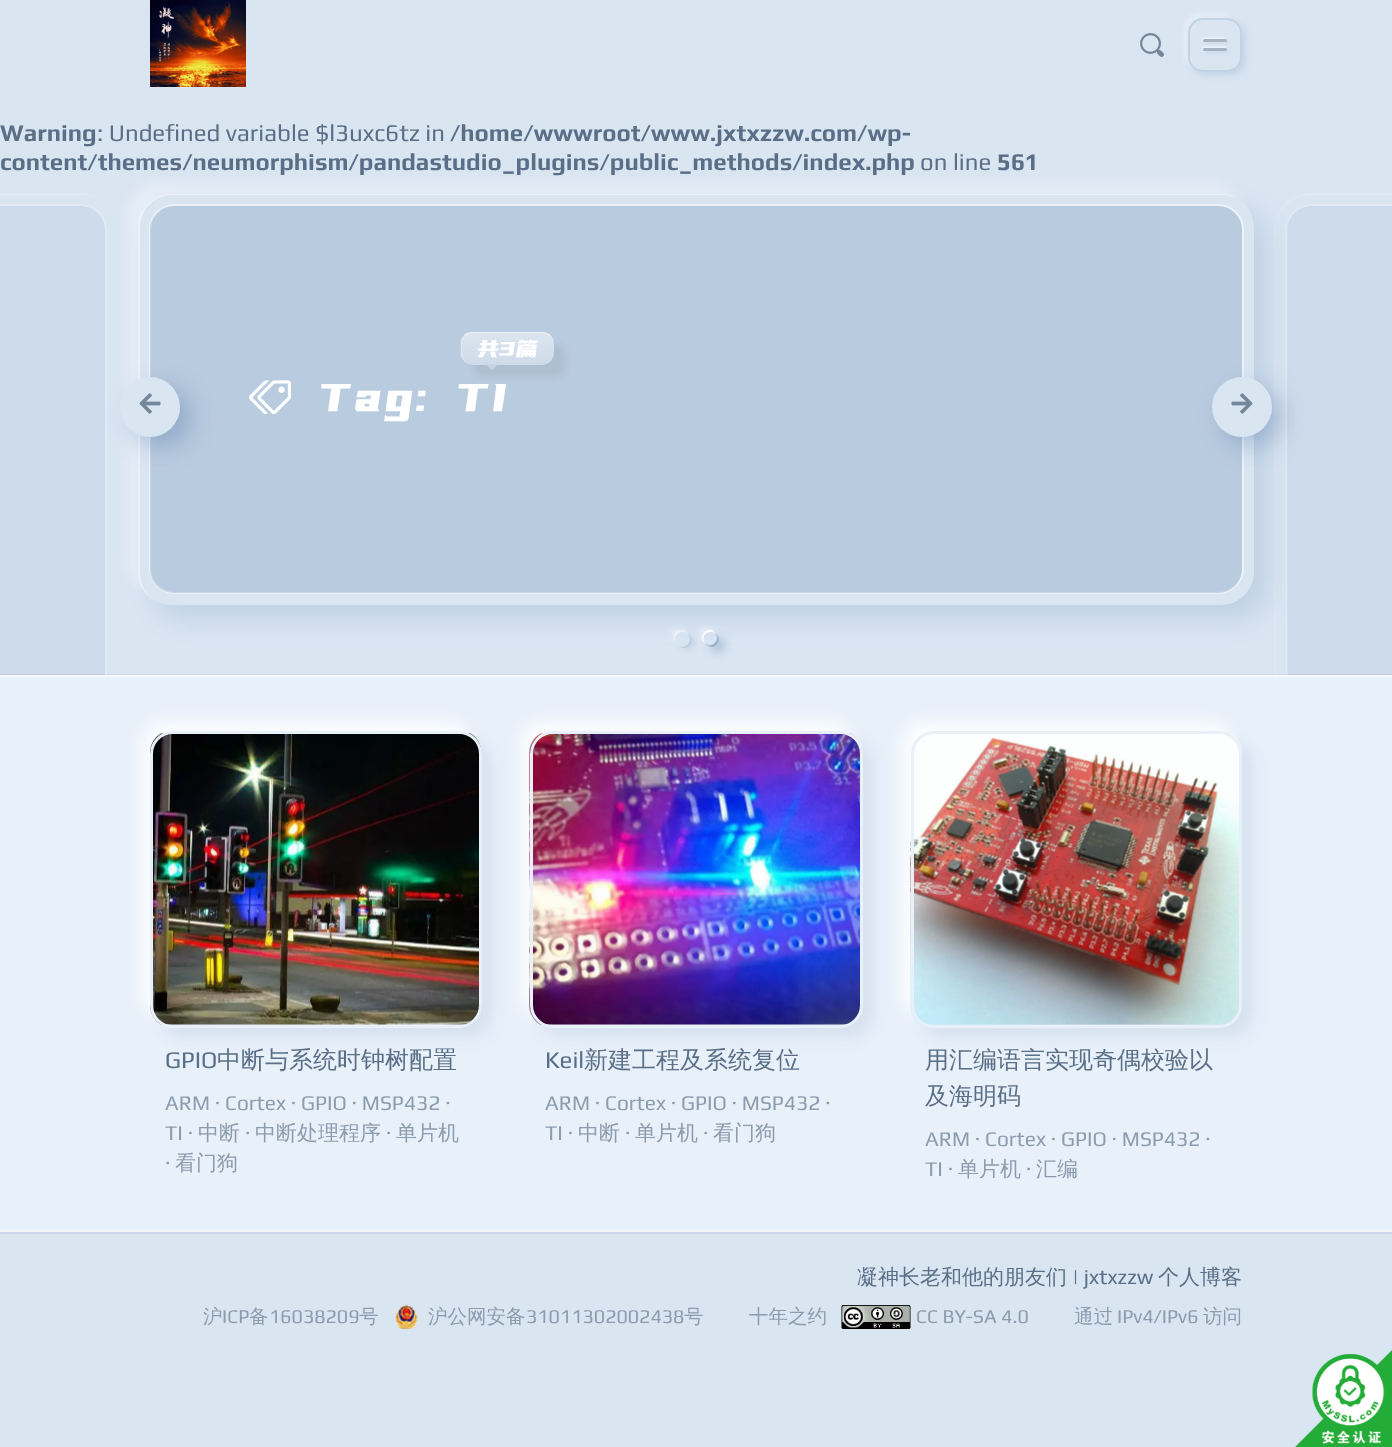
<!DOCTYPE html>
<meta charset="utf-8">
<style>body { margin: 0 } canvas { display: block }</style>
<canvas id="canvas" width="1392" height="1447"></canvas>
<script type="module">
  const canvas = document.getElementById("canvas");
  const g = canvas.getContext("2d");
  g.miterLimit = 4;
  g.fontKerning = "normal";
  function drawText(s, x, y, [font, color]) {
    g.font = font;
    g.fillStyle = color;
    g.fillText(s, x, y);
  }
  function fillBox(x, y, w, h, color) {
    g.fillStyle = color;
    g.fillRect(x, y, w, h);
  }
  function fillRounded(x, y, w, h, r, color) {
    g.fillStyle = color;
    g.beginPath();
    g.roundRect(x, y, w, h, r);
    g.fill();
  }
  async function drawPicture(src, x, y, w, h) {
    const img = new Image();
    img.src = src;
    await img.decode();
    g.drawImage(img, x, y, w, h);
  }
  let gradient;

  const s1 = ["bold 24px Play", "#5A6F87"];
  const s2 = ["24px Play", "#5A6F87"];
  const s3 = ["24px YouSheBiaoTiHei", "#FFFFFF"];
  const s4 = ["48px YouSheBiaoTiHei", "#FFFFFF"];
  const s5 = ["500 24px WenQuanYi Zen Hei", "#5A6F87"];
  const s6 = ["21px Play", "#8C9CAE"];
  const s7 = ["500 21px WenQuanYi Zen Hei", "#8C9CAE"];
  const s8 = ["500 21px WenQuanYi Zen Hei", "#5A6F87"];
  const s9 = ["21px Play", "#5A6F87"];
  const s10 = ["500 19.5px WenQuanYi Zen Hei", "#8C9CAE"];
  const s11 = ["19.5px Play", "#8C9CAE"];

  fillBox(0, 0, 1392, 1447, "#DAE5F2");
  await drawPicture("pic1.png", 150, 0, 96, 87);
  await drawPicture("pic2.png", 1140, 33, 24, 24);
  g.save();
  g.beginPath();
  g.moveTo(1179, 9);
  g.lineTo(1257, 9);
  g.lineTo(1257, 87);
  g.lineTo(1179, 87);
  g.closePath();
  g.moveTo(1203, 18);
  g.lineTo(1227, 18);
  g.bezierCurveTo(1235.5, 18, 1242, 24.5, 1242, 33);
  g.lineTo(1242, 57);
  g.bezierCurveTo(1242, 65.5, 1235.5, 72, 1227, 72);
  g.lineTo(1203, 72);
  g.bezierCurveTo(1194.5, 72, 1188, 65.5, 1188, 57);
  g.lineTo(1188, 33);
  g.bezierCurveTo(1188, 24.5, 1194.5, 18, 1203, 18);
  g.closePath();
  g.clip("evenodd");
  g.fillStyle = "rgba(54, 100, 152, 0.15)";
  g.filter = "blur(3.5px)";
  g.beginPath();
  g.roundRect(1191, 21, 54, 54, 15);
  g.fill();
  g.filter = "none";
  g.restore();
  g.save();
  g.beginPath();
  g.moveTo(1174, 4);
  g.lineTo(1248, 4);
  g.lineTo(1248, 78);
  g.lineTo(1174, 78);
  g.closePath();
  g.moveTo(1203, 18);
  g.lineTo(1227, 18);
  g.bezierCurveTo(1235.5, 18, 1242, 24.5, 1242, 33);
  g.lineTo(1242, 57);
  g.bezierCurveTo(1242, 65.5, 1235.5, 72, 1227, 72);
  g.lineTo(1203, 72);
  g.bezierCurveTo(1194.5, 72, 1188, 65.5, 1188, 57);
  g.lineTo(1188, 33);
  g.bezierCurveTo(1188, 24.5, 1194.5, 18, 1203, 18);
  g.closePath();
  g.clip("evenodd");
  g.fillStyle = "rgba(255, 255, 255, 0.35)";
  g.filter = "blur(3px)";
  g.beginPath();
  g.roundRect(1184, 14, 54, 54, 15);
  g.fill();
  g.filter = "none";
  g.restore();
  g.beginPath();
  g.roundRect(1189, 19, 52, 52, 14);
  g.strokeStyle = "rgba(54, 100, 152, 0.15)";
  g.lineWidth = 2;
  g.stroke();
  g.fillStyle = "rgba(54, 100, 152, 0.1)";
  g.filter = "blur(1.5px)";
  g.beginPath();
  g.roundRect(1205, 41, 24, 3, 1.5);
  g.fill();
  g.filter = "none";
  g.fillStyle = "rgba(255, 255, 255, 0.8)";
  g.filter = "blur(1.5px)";
  g.beginPath();
  g.roundRect(1202, 38, 24, 3, 1.5);
  g.fill();
  g.filter = "none";
  fillRounded(1203, 39, 24, 3, 1.5, "#A5B3C1");
  g.fillStyle = "rgba(54, 100, 152, 0.1)";
  g.filter = "blur(1.5px)";
  g.beginPath();
  g.roundRect(1205, 50, 24, 3, 1.5);
  g.fill();
  g.filter = "none";
  g.fillStyle = "rgba(255, 255, 255, 0.8)";
  g.filter = "blur(1.5px)";
  g.beginPath();
  g.roundRect(1202, 47, 24, 3, 1.5);
  g.fill();
  g.filter = "none";
  fillRounded(1203, 48, 24, 3, 1.5, "#A5B3C1");
  drawText("Warning", 0, 141, s1);
  drawText(": Undefined variable $l3uxc6tz in", 97, 141, s2);
  drawText("/home/wwwroot/www.jxtxzzw.com/wp-", 450, 141, s1);
  drawText("content/themes/neumorphism/pandastudio_plugins/public_methods/index.php", 0, 170, s1);
  drawText("on line", 920, 170, s2);
  drawText("561", 997, 170, s1);
  g.fillStyle = "#E1EAF5";
  g.beginPath();
  g.moveTo(-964, 195);
  g.lineTo(86, 195);
  g.bezierCurveTo(92, 195, 98, 197, 103, 200);
  g.bezierCurveTo(97, 196, 91, 194, 84, 194);
  g.lineTo(-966, 194);
  g.bezierCurveTo(-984, 194, -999, 209, -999, 227);
  g.lineTo(-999, 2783);
  g.bezierCurveTo(-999, 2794, -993, 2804, -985, 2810);
  g.bezierCurveTo(-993, 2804, -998, 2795, -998, 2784);
  g.lineTo(-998, 228);
  g.bezierCurveTo(-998, 210, -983, 195, -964, 195);
  g.closePath();
  g.fill();
  fillBox(0, 674, 1392, 1, "#CAD8E9");
  fillBox(0, 677, 1392, 553, "#E8F0FA");
  fillBox(0, 675, 1392, 2, "#F6F9FD");
  fillBox(0, 1230, 1392, 2, "#F4F8FD");
  fillBox(0, 1232, 1392, 2, "#CAD8E9");
  g.save();
  g.beginPath();
  g.rect(0, 176, 1392, 499);
  g.clip();
  g.beginPath();
  g.roundRect(-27, 205, 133, 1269, 25);
  g.strokeStyle = "rgba(255, 255, 255, 0.17)";
  g.stroke();
  g.restore();
  g.fillStyle = "rgba(54, 100, 152, 0.07)";
  g.beginPath();
  g.roundRect(0, 206, 105, 469, [0, 24, 0, 0]);
  g.fill();
  g.save();
  g.beginPath();
  g.rect(0, 176, 1392, 499);
  g.clip();
  g.fillStyle = "rgba(255, 255, 255, 0.17)";
  g.beginPath();
  g.moveTo(1310, 195);
  g.lineTo(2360, 195);
  g.bezierCurveTo(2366, 195, 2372, 197, 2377, 200);
  g.bezierCurveTo(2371, 196, 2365, 194, 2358, 194);
  g.lineTo(1308, 194);
  g.bezierCurveTo(1290, 194, 1275, 209, 1275, 227);
  g.lineTo(1275, 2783);
  g.bezierCurveTo(1275, 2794, 1281, 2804, 1289, 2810);
  g.bezierCurveTo(1281, 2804, 1276, 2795, 1276, 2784);
  g.lineTo(1276, 228);
  g.bezierCurveTo(1276, 210, 1291, 195, 1310, 195);
  g.closePath();
  g.fill();
  g.beginPath();
  g.roundRect(1287, 205, 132, 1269, 25);
  g.strokeStyle = "rgba(255, 255, 255, 0.17)";
  g.stroke();
  g.restore();
  g.beginPath();
  g.roundRect(1287, 206, 105, 469, [24, 0, 0, 0]);
  g.fill();
  g.fillStyle = "#EDF2F9";
  g.beginPath();
  g.moveTo(681.5, 630);
  g.bezierCurveTo(675, 630, 672, 637.5, 676, 642.5);
  g.bezierCurveTo(672, 634.5, 682.5, 627.5, 688, 634);
  g.bezierCurveTo(687, 631.5, 684.5, 630, 681.5, 630);
  g.closePath();
  g.fill();
  g.save();
  g.beginPath();
  g.moveTo(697, 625);
  g.lineTo(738, 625);
  g.lineTo(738, 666);
  g.lineTo(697, 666);
  g.closePath();
  g.moveTo(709.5, 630);
  g.bezierCurveTo(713.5, 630, 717, 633.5, 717, 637.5);
  g.bezierCurveTo(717, 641.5, 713.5, 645, 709.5, 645);
  g.bezierCurveTo(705.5, 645, 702, 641.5, 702, 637.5);
  g.bezierCurveTo(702, 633.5, 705.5, 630, 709.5, 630);
  g.closePath();
  g.clip("evenodd");
  g.fillStyle = "rgba(54, 100, 152, 0.25)";
  g.filter = "blur(4px)";
  g.beginPath();
  g.roundRect(710, 638, 15, 15, 7.5);
  g.fill();
  g.filter = "none";
  g.restore();
  g.save();
  g.beginPath();
  g.moveTo(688, 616);
  g.lineTo(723, 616);
  g.lineTo(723, 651);
  g.lineTo(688, 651);
  g.closePath();
  g.moveTo(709.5, 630);
  g.bezierCurveTo(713.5, 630, 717, 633.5, 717, 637.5);
  g.bezierCurveTo(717, 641.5, 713.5, 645, 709.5, 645);
  g.bezierCurveTo(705.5, 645, 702, 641.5, 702, 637.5);
  g.bezierCurveTo(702, 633.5, 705.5, 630, 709.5, 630);
  g.closePath();
  g.clip("evenodd");
  g.fillStyle = "rgba(255, 255, 255, 0.4)";
  g.filter = "blur(3px)";
  g.beginPath();
  g.roundRect(698, 626, 15, 15, 7.5);
  g.fill();
  g.filter = "none";
  g.restore();
  g.fillStyle = "rgba(54, 100, 152, 0.25)";
  g.beginPath();
  g.moveTo(705.5, 643.5);
  g.bezierCurveTo(712, 653.5, 725.5, 640, 715.5, 633.5);
  g.bezierCurveTo(720.5, 640, 712, 648.5, 705.5, 643.5);
  g.closePath();
  g.fill();
  g.fillStyle = "#FFFFFF";
  g.beginPath();
  g.moveTo(711, 632);
  g.bezierCurveTo(713, 632, 714.5, 632.5, 716, 633.5);
  g.bezierCurveTo(715, 632, 713, 630.5, 711.5, 630);
  g.bezierCurveTo(703.5, 628, 698.5, 639, 705.5, 643.5);
  g.bezierCurveTo(701.5, 639.5, 703.5, 632, 711, 632);
  g.closePath();
  g.fill();
  g.save();
  g.beginPath();
  g.moveTo(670, 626);
  g.lineTo(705, 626);
  g.lineTo(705, 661);
  g.lineTo(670, 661);
  g.closePath();
  g.moveTo(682.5, 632);
  g.bezierCurveTo(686.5, 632, 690, 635.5, 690, 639.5);
  g.bezierCurveTo(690, 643.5, 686.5, 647, 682.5, 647);
  g.bezierCurveTo(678.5, 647, 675, 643.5, 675, 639.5);
  g.bezierCurveTo(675, 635.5, 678.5, 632, 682.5, 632);
  g.closePath();
  g.clip("evenodd");
  g.fillStyle = "rgba(54, 100, 152, 0.1)";
  g.filter = "blur(3px)";
  g.beginPath();
  g.roundRect(680, 636, 15, 15, 7.5);
  g.fill();
  g.filter = "none";
  g.restore();
  g.save();
  g.beginPath();
  g.moveTo(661, 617);
  g.lineTo(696, 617);
  g.lineTo(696, 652);
  g.lineTo(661, 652);
  g.closePath();
  g.moveTo(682.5, 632);
  g.bezierCurveTo(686.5, 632, 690, 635.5, 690, 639.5);
  g.bezierCurveTo(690, 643.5, 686.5, 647, 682.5, 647);
  g.bezierCurveTo(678.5, 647, 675, 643.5, 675, 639.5);
  g.bezierCurveTo(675, 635.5, 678.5, 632, 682.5, 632);
  g.closePath();
  g.clip("evenodd");
  g.fillStyle = "rgba(255, 255, 255, 0.4)";
  g.filter = "blur(3px)";
  g.beginPath();
  g.roundRect(671, 627, 15, 15, 7.5);
  g.fill();
  g.filter = "none";
  g.restore();
  g.fillStyle = "rgba(54, 100, 152, 0.1)";
  g.beginPath();
  g.moveTo(679, 645.5);
  g.bezierCurveTo(687, 654, 698, 639, 688, 634);
  g.bezierCurveTo(693.5, 640, 686.5, 649.5, 679, 645.5);
  g.closePath();
  g.fill();
  g.save();
  g.beginPath();
  g.moveTo(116, 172);
  g.lineTo(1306, 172);
  g.lineTo(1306, 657);
  g.lineTo(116, 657);
  g.closePath();
  g.moveTo(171, 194);
  g.lineTo(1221, 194);
  g.bezierCurveTo(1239, 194, 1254, 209, 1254, 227);
  g.lineTo(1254, 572);
  g.bezierCurveTo(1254, 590, 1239, 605, 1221, 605);
  g.lineTo(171, 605);
  g.bezierCurveTo(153, 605, 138, 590, 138, 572);
  g.lineTo(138, 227);
  g.bezierCurveTo(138, 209, 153, 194, 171, 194);
  g.closePath();
  g.clip("evenodd");
  g.fillStyle = "rgba(54, 100, 152, 0.15)";
  g.filter = "blur(12px)";
  g.beginPath();
  g.roundRect(153, 209, 1116, 411, 33);
  g.fill();
  g.filter = "none";
  g.restore();
  g.save();
  g.beginPath();
  g.rect(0, 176, 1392, 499);
  g.clip();
  g.beginPath();
  g.moveTo(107, 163);
  g.lineTo(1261, 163);
  g.lineTo(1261, 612);
  g.lineTo(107, 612);
  g.closePath();
  g.moveTo(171, 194);
  g.lineTo(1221, 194);
  g.bezierCurveTo(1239, 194, 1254, 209, 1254, 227);
  g.lineTo(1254, 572);
  g.bezierCurveTo(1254, 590, 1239, 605, 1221, 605);
  g.lineTo(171, 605);
  g.bezierCurveTo(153, 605, 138, 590, 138, 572);
  g.lineTo(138, 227);
  g.bezierCurveTo(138, 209, 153, 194, 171, 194);
  g.closePath();
  g.clip("evenodd");
  g.fillStyle = "rgba(255, 255, 255, 0.3)";
  g.filter = "blur(6px)";
  g.beginPath();
  g.roundRect(126, 182, 1116, 411, 33);
  g.fill();
  g.filter = "none";
  g.restore();
  g.fillStyle = "rgba(255, 255, 255, 0.5)";
  g.beginPath();
  g.moveTo(172, 195);
  g.lineTo(1222, 195);
  g.bezierCurveTo(1229, 195, 1235, 197, 1240, 200);
  g.bezierCurveTo(1234, 196, 1228, 194, 1221, 194);
  g.lineTo(171, 194);
  g.bezierCurveTo(153, 194, 138, 209, 138, 227);
  g.lineTo(138, 572);
  g.bezierCurveTo(138, 584, 144, 594, 154, 600);
  g.bezierCurveTo(145, 594, 140, 584, 140, 573);
  g.lineTo(140, 228);
  g.bezierCurveTo(140, 210, 154, 195, 172, 195);
  g.closePath();
  g.fill();
  g.beginPath();
  g.roundRect(150, 205, 1093, 388, 25);
  g.strokeStyle = "#ECF2F8";
  g.stroke();
  fillRounded(150, 206, 1092, 387, 24, "rgba(54, 100, 152, 0.2)");
  g.save();
  g.beginPath();
  g.moveTo(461, 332);
  g.lineTo(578, 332);
  g.lineTo(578, 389);
  g.lineTo(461, 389);
  g.closePath();
  g.moveTo(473, 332);
  g.lineTo(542, 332);
  g.bezierCurveTo(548.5, 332, 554, 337.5, 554, 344);
  g.lineTo(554, 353);
  g.bezierCurveTo(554, 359.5, 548.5, 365, 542, 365);
  g.lineTo(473, 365);
  g.bezierCurveTo(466.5, 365, 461, 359.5, 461, 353);
  g.lineTo(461, 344);
  g.bezierCurveTo(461, 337.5, 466.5, 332, 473, 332);
  g.closePath();
  g.clip("evenodd");
  g.fillStyle = "rgba(0, 0, 0, 0.06)";
  g.filter = "blur(3.5px)";
  g.beginPath();
  g.roundRect(473, 344, 93, 33, 12);
  g.fill();
  g.filter = "none";
  g.restore();
  g.save();
  g.beginPath();
  g.roundRect(461, 332, 93, 33, 12);
  g.clip();
  gradient = g.createLinearGradient(508, 302, 508, 333);
  gradient.addColorStop(0, "#DCE5F0");
  gradient.addColorStop(1, "#CEDBE9");
  g.fillStyle = gradient;
  g.fillRect(461, 332, 93, 1);
  gradient = g.createLinearGradient(508, 333, 508, 365);
  gradient.addColorStop(0, "rgba(255, 255, 255, 0.5)");
  gradient.addColorStop(1, "rgba(255, 255, 255, 0.3)");
  g.fillStyle = gradient;
  g.beginPath();
  g.roundRect(461, 333, 93, 32, [0, 0, 12, 12]);
  g.fill();
  g.restore();
  g.fillStyle = "rgba(255, 255, 255, 0.7)";
  g.beginPath();
  g.moveTo(472, 332);
  g.lineTo(542, 332);
  g.bezierCurveTo(547, 332, 552, 335, 554, 341);
  g.bezierCurveTo(552, 336, 547, 333, 542, 333);
  g.lineTo(472, 333);
  g.bezierCurveTo(470, 333, 467, 334, 465, 336);
  g.lineTo(464, 335);
  g.bezierCurveTo(466, 333, 469, 332, 472, 332);
  g.closePath();
  g.fill();
  g.fillStyle = "rgba(255, 255, 255, 0.3)";
  g.beginPath();
  g.moveTo(464, 335);
  g.lineTo(465, 336);
  g.bezierCurveTo(463.5, 338, 462, 341, 462, 344);
  g.lineTo(462, 352);
  g.bezierCurveTo(462, 359, 467, 364, 472, 364);
  g.bezierCurveTo(467, 364, 462, 360.5, 460.5, 355.5);
  g.lineTo(460.5, 340.5);
  g.bezierCurveTo(461, 338.5, 462.5, 336.5, 464, 335);
  g.closePath();
  g.fill();
  drawText("共3篇", 477, 357, s3);
  g.fillStyle = "#C6D2E0";
  g.beginPath();
  g.moveTo(486, 364.5);
  g.lineTo(498, 364.5);
  g.lineTo(492, 370.5);
  g.closePath();
  g.fill();
  await drawPicture("pic3.png", 249, 380, 42, 34);
  drawText("Tag: TI", 319, 414, s4);
  g.fillStyle = "rgba(54, 100, 152, 0.3)";
  g.filter = "blur(12px)";
  g.beginPath();
  g.roundRect(131, 387, 60, 60, 30);
  g.fill();
  g.filter = "none";
  g.fillStyle = "#DAE5F2";
  g.beginPath();
  g.arc(150, 407, 30, 0, Math.PI * 2);
  g.fill();
  await drawPicture("pic4.png", 139, 393, 22, 21);
  g.fillStyle = "rgba(54, 100, 152, 0.3)";
  g.filter = "blur(12px)";
  g.beginPath();
  g.roundRect(1223, 387, 60, 60, 30);
  g.fill();
  g.filter = "none";
  g.fillStyle = "#DAE5F2";
  g.beginPath();
  g.arc(1242, 407, 30, 0, Math.PI * 2);
  g.fill();
  await drawPicture("pic5.png", 1231, 393, 22, 21);
  g.fillStyle = "rgba(54, 100, 152, 0.1)";
  g.filter = "blur(7.5px)";
  g.beginPath();
  g.roundRect(161, 741, 331, 297, 23);
  g.fill();
  g.filter = "none";
  g.fillStyle = "rgba(255, 255, 255, 0.8)";
  g.filter = "blur(7.5px)";
  g.beginPath();
  g.roundRect(140, 720, 331, 297, 23);
  g.fill();
  g.filter = "none";
  await drawPicture("pic6.png", 150, 733, 332, 292);
  g.beginPath();
  g.roundRect(151.5, 732.5, 329, 294, 21.5);
  g.strokeStyle = "#E8F0FA";
  g.lineWidth = 3;
  g.stroke();
  drawText("GPIO", 165, 1068, s2);
  drawText("中断与系统时钟树配置", 217, 1068, s5);
  drawText("ARM · Cortex · GPIO · MSP432 ·", 165, 1110, s6);
  drawText("TI ·", 165, 1140, s6);
  drawText("中断", 198, 1140, s7);
  drawText("·", 245, 1140, s6);
  drawText("中断处理程序", 255, 1140, s7);
  drawText("·", 386, 1140, s6);
  drawText("单片机", 396, 1140, s7);
  drawText("·", 165, 1170, s6);
  drawText("看门狗", 175, 1170, s7);
  g.fillStyle = "rgba(54, 100, 152, 0.1)";
  g.filter = "blur(7.5px)";
  g.beginPath();
  g.roundRect(540, 741, 333, 297, 23);
  g.fill();
  g.filter = "none";
  g.fillStyle = "rgba(255, 255, 255, 0.8)";
  g.filter = "blur(7.5px)";
  g.beginPath();
  g.roundRect(519, 720, 333, 297, 23);
  g.fill();
  g.filter = "none";
  await drawPicture("pic7.png", 529, 733, 331, 292);
  g.beginPath();
  g.roundRect(531.5, 732.5, 330, 294, 21.5);
  g.stroke();
  drawText("Keil", 545, 1068, s2);
  drawText("新建工程及系统复位", 584, 1068, s5);
  drawText("ARM · Cortex · GPIO · MSP432 ·", 545, 1110, s6);
  drawText("TI ·", 545, 1140, s6);
  drawText("中断", 578, 1140, s7);
  drawText("·", 625, 1140, s6);
  drawText("单片机", 635, 1140, s7);
  drawText("·", 703, 1140, s6);
  drawText("看门狗", 713, 1140, s7);
  g.fillStyle = "rgba(54, 100, 152, 0.1)";
  g.filter = "blur(7.5px)";
  g.beginPath();
  g.roundRect(921, 741, 332, 297, 23);
  g.fill();
  g.filter = "none";
  g.fillStyle = "rgba(255, 255, 255, 0.8)";
  g.filter = "blur(7.5px)";
  g.beginPath();
  g.roundRect(900, 720, 332, 297, 23);
  g.fill();
  g.filter = "none";
  await drawPicture("pic8.png", 910, 733, 332, 292);
  g.beginPath();
  g.roundRect(912.5, 732.5, 328, 294, 21.5);
  g.stroke();
  drawText("用汇编语言实现奇偶校验以", 925, 1068, s5);
  drawText("及海明码", 925, 1104, s5);
  drawText("ARM · Cortex · GPIO · MSP432 ·", 925, 1146, s6);
  drawText("TI ·", 925, 1176, s6);
  drawText("单片机", 958, 1176, s7);
  drawText("·", 1026, 1176, s6);
  drawText("汇编", 1036, 1176, s7);
  drawText("凝神长老和他的朋友们", 857, 1284, s8);
  drawText("| jxtxzzw", 1072, 1284, s9);
  drawText("个人博客", 1158, 1284, s8);
  drawText("沪", 203, 1323, s10);
  drawText("ICP", 222, 1323, s11);
  drawText("备", 249, 1323, s10);
  drawText("16038209", 269, 1323, s11);
  drawText("号", 359, 1323, s10);
  await drawPicture("pic9.png", 395, 1305, 23, 24);
  drawText("沪公网安备", 428, 1323, s10);
  drawText("31011302002438", 526, 1323, s11);
  drawText("号", 684, 1323, s10);
  drawText("十年之约", 749, 1323, s10);
  await drawPicture("pic10.png", 841, 1305, 70, 24);
  drawText("CC BY-SA 4.0", 916, 1323, s11);
  drawText("通过", 1074, 1323, s10);
  drawText("IPv4/IPv6", 1117, 1323, s11);
  drawText("访问", 1203, 1323, s10);
  await drawPicture("pic11.png", 1294, 1350, 98, 97);
</script>
